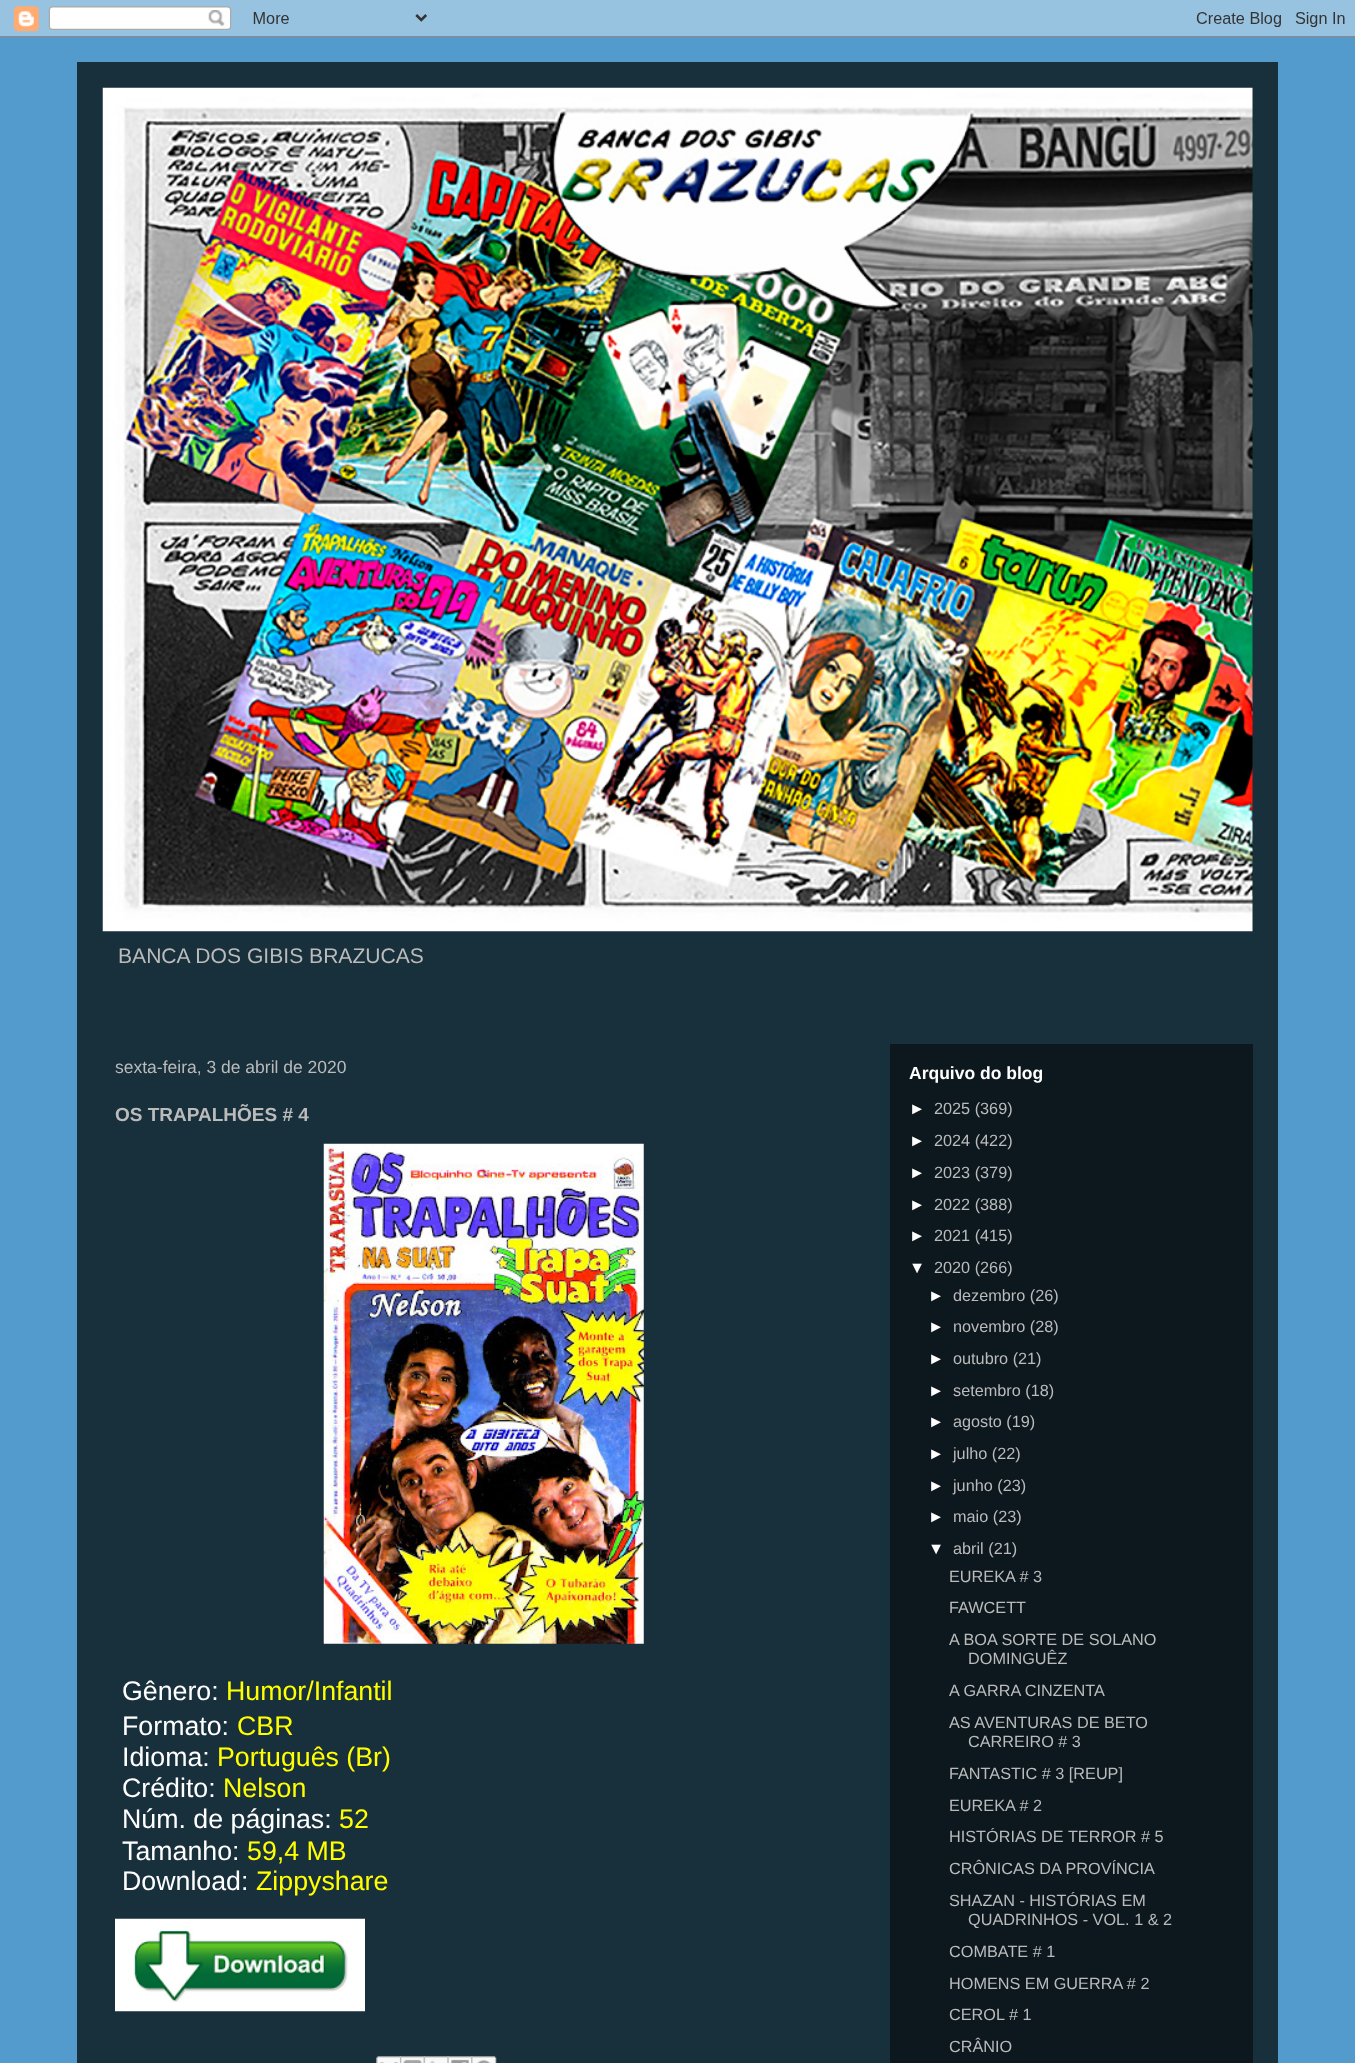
<!DOCTYPE html>
<meta charset="utf-8">
<style>body { margin: 0 } canvas { display: block }</style>
<canvas id="canvas" width="1355" height="2063"></canvas>
<script type="module">
  const canvas = document.getElementById("canvas");
  const g = canvas.getContext("2d");
  g.miterLimit = 4;
  g.fontKerning = "normal";
  function drawText(s, x, y, [font, color]) {
    g.font = font;
    g.fillStyle = color;
    g.fillText(s, x, y);
  }
  function fillBox(x, y, w, h, color) {
    g.fillStyle = color;
    g.fillRect(x, y, w, h);
  }
  async function drawPicture(src, x, y, w, h) {
    const img = new Image();
    img.src = src;
    await img.decode();
    g.drawImage(img, x, y, w, h);
  }

  const s1 = ["21.1px Liberation Sans", "#BBBBBB"];
  const s2 = ["17.5px Liberation Sans", "#BBBBBB"];
  const s3 = ["bold 19px Liberation Sans", "#BBBBBB"];
  const s4 = ["26.75px Liberation Sans", "#FFFFFF"];
  const s5 = ["26.75px Liberation Sans", "#FFFF00"];
  const s6 = ["bold 17.5px Liberation Sans", "#FFFFFF"];
  const s7 = ["16.25px Liberation Sans", "#FFFFFF"];
  const s8 = ["16.25px Liberation Sans", "#BBBBBB"];

  fillBox(0, 0, 1355, 2063, "#539BCD");
  await drawPicture("pic1.png", 0, 0, 1355, 38);
  fillBox(77, 62, 1201, 2001, "#182F3C");
  await drawPicture("pic2.png", 102, 87, 1151, 845);
  drawText("BANCA DOS GIBIS BRAZUCAS", 118, 963, s1);
  fillBox(890, 1044, 363, 1019, "#0C181E");
  drawText("sexta-feira, 3 de abril de 2020", 115, 1073, s2);
  drawText("OS TRAPALHÕES # 4", 115, 1121, s3);
  await drawPicture("pic3.png", 323, 1143, 321, 501);
  drawText("Gênero:", 122, 1700, s4);
  drawText("Humor/Infantil", 226, 1700, s5);
  drawText("Formato:", 122, 1735, s4);
  drawText("CBR", 237, 1735, s5);
  drawText("Idioma:", 122, 1766, s4);
  drawText("Português (Br)", 217, 1766, s5);
  drawText("Crédito:", 122, 1797, s4);
  drawText("Nelson", 223, 1797, s5);
  drawText("Núm. de páginas:", 122, 1828, s4);
  drawText("52", 339, 1828, s5);
  drawText("Tamanho:", 122, 1860, s4);
  drawText("59,4 MB", 247, 1860, s5);
  drawText("Download:", 122, 1890, s4);
  drawText("Zippyshare", 256, 1890, s5);
  await drawPicture("pic4.png", 115, 1918, 250, 94);
  await drawPicture("pic5.png", 376, 2056, 26, 7);
  await drawPicture("pic6.png", 400, 2056, 25, 7);
  await drawPicture("pic7.png", 423, 2056, 26, 7);
  await drawPicture("pic8.png", 447, 2056, 26, 7);
  await drawPicture("pic9.png", 471, 2056, 26, 7);
  drawText("Arquivo do blog", 909, 1079, s6);
  drawText("►", 909, 1114, s7);
  drawText("2025 (369)", 934, 1114, s8);
  drawText("►", 909, 1146, s7);
  drawText("2024 (422)", 934, 1146, s8);
  drawText("►", 909, 1178, s7);
  drawText("2023 (379)", 934, 1178, s8);
  drawText("►", 909, 1210, s7);
  drawText("2022 (388)", 934, 1210, s8);
  drawText("►", 909, 1241, s7);
  drawText("2021 (415)", 934, 1241, s8);
  drawText("▼", 909, 1273, s7);
  drawText("2020 (266)", 934, 1273, s8);
  drawText("►", 928, 1301, s7);
  drawText("dezembro (26)", 953, 1301, s8);
  drawText("►", 928, 1332, s7);
  drawText("novembro (28)", 953, 1332, s8);
  drawText("►", 928, 1364, s7);
  drawText("outubro (21)", 953, 1364, s8);
  drawText("►", 928, 1396, s7);
  drawText("setembro (18)", 953, 1396, s8);
  drawText("►", 928, 1427, s7);
  drawText("agosto (19)", 953, 1427, s8);
  drawText("►", 928, 1459, s7);
  drawText("julho (22)", 953, 1459, s8);
  drawText("►", 928, 1491, s7);
  drawText("junho (23)", 953, 1491, s8);
  drawText("►", 928, 1522, s7);
  drawText("maio (23)", 953, 1522, s8);
  drawText("▼", 928, 1554, s7);
  drawText("abril (21)", 953, 1554, s8);
  drawText("EUREKA # 3", 949, 1582, s8);
  drawText("FAWCETT", 949, 1613, s8);
  drawText("A BOA SORTE DE SOLANO", 949, 1645, s8);
  drawText("DOMINGUÊZ", 968, 1664, s8);
  drawText("A GARRA CINZENTA", 949, 1696, s8);
  drawText("AS AVENTURAS DE BETO", 949, 1728, s8);
  drawText("CARREIRO # 3", 968, 1747, s8);
  drawText("FANTASTIC # 3 [REUP]", 949, 1779, s8);
  drawText("EUREKA # 2", 949, 1811, s8);
  drawText("HISTÓRIAS DE TERROR # 5", 949, 1842, s8);
  drawText("CRÔNICAS DA PROVÍNCIA", 949, 1874, s8);
  drawText("SHAZAN - HISTÓRIAS EM", 949, 1906, s8);
  drawText("QUADRINHOS - VOL. 1 & 2", 968, 1925, s8);
  drawText("COMBATE # 1", 949, 1957, s8);
  drawText("HOMENS EM GUERRA # 2", 949, 1989, s8);
  drawText("CEROL # 1", 949, 2020, s8);
  drawText("CRÂNIO", 949, 2052, s8);
</script>
